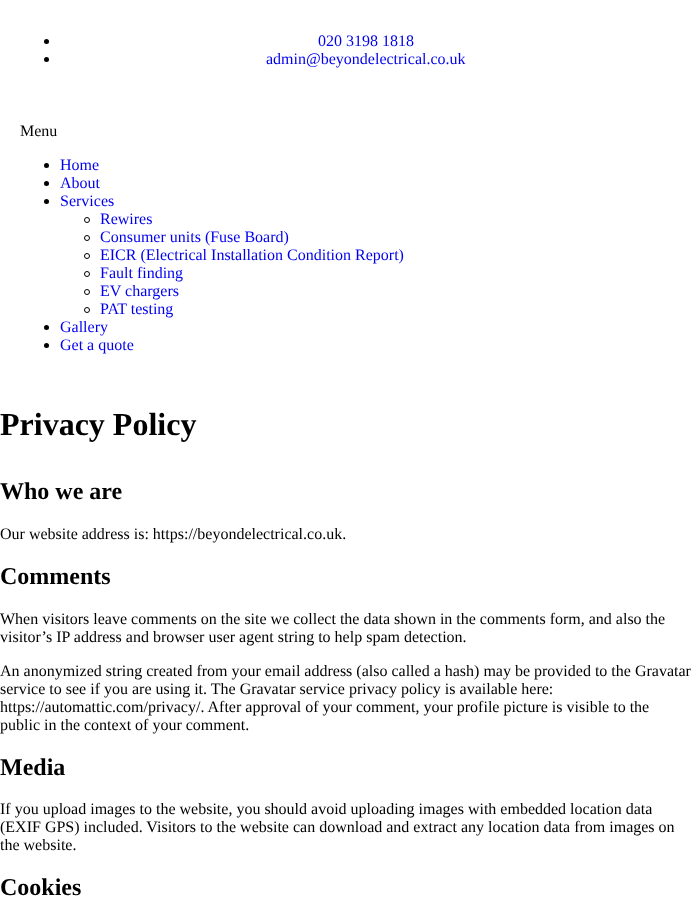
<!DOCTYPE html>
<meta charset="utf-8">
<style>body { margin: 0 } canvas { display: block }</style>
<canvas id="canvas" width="691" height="904"></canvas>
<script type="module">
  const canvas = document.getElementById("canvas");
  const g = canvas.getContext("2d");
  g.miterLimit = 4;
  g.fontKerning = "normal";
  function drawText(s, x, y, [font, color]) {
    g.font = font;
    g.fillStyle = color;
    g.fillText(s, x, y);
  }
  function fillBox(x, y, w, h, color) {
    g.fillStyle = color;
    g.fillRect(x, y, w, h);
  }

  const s1 = ["16px Liberation Serif", "#0000EE"];
  const s2 = ["16px Liberation Serif", "#000000"];
  const s3 = ["bold 32px Liberation Serif", "#000000"];
  const s4 = ["bold 24px Liberation Serif", "#000000"];

  fillBox(0, 0, 691, 904, "#FFFFFF");
  g.fillStyle = "#000000";
  g.beginPath();
  g.arc(46.5, 41.5, 2.5, 0, Math.PI * 2);
  g.fill();
  drawText("020 3198 1818", 318, 46, s1);
  g.fillStyle = "#000000";
  g.beginPath();
  g.arc(46.5, 59.5, 2.5, 0, Math.PI * 2);
  g.fill();
  drawText("admin@beyondelectrical.co.uk", 266, 64, s1);
  drawText("Menu", 20, 136, s2);
  g.beginPath();
  g.arc(46.5, 165.5, 2.5, 0, Math.PI * 2);
  g.fill();
  drawText("Home", 60, 170, s1);
  g.fillStyle = "#000000";
  g.beginPath();
  g.arc(46.5, 183.5, 2.5, 0, Math.PI * 2);
  g.fill();
  drawText("About", 60, 188, s1);
  g.fillStyle = "#000000";
  g.beginPath();
  g.arc(46.5, 201.5, 2.5, 0, Math.PI * 2);
  g.fill();
  drawText("Services", 60, 206, s1);
  g.beginPath();
  g.arc(87, 220, 2.5, 0, Math.PI * 2);
  g.strokeStyle = "#000000";
  g.stroke();
  drawText("Rewires", 100, 224, s1);
  g.beginPath();
  g.arc(87, 238, 2.5, 0, Math.PI * 2);
  g.stroke();
  drawText("Consumer units (Fuse Board)", 100, 242, s1);
  g.beginPath();
  g.arc(87, 256, 2.5, 0, Math.PI * 2);
  g.stroke();
  drawText("EICR (Electrical Installation Condition Report)", 100, 260, s1);
  g.beginPath();
  g.arc(87, 274, 2.5, 0, Math.PI * 2);
  g.stroke();
  drawText("Fault finding", 100, 278, s1);
  g.beginPath();
  g.arc(87, 292, 2.5, 0, Math.PI * 2);
  g.stroke();
  drawText("EV chargers", 100, 296, s1);
  g.beginPath();
  g.arc(87, 310, 2.5, 0, Math.PI * 2);
  g.stroke();
  drawText("PAT testing", 100, 314, s1);
  g.fillStyle = "#000000";
  g.beginPath();
  g.arc(46.5, 327.5, 2.5, 0, Math.PI * 2);
  g.fill();
  drawText("Gallery", 60, 332, s1);
  g.fillStyle = "#000000";
  g.beginPath();
  g.arc(46.5, 345.5, 2.5, 0, Math.PI * 2);
  g.fill();
  drawText("Get a quote", 60, 350, s1);
  drawText("Privacy Policy", 0, 435, s3);
  drawText("Who we are", 0, 499, s4);
  drawText("Our website address is: https://beyondelectrical.co.uk.", 0, 539, s2);
  drawText("Comments", 0, 584, s4);
  drawText("When visitors leave comments on the site we collect the data shown in the comments form, and also the", 0, 624, s2);
  drawText("visitor’s IP address and browser user agent string to help spam detection.", 0, 642, s2);
  drawText("An anonymized string created from your email address (also called a hash) may be provided to the Gravatar", 0, 676, s2);
  drawText("service to see if you are using it. The Gravatar service privacy policy is available here:", 0, 694, s2);
  drawText("https://automattic.com/privacy/. After approval of your comment, your profile picture is visible to the", 0, 712, s2);
  drawText("public in the context of your comment.", 0, 730, s2);
  drawText("Media", 0, 775, s4);
  drawText("If you upload images to the website, you should avoid uploading images with embedded location data", 0, 814, s2);
  drawText("(EXIF GPS) included. Visitors to the website can download and extract any location data from images on", 0, 832, s2);
  drawText("the website.", 0, 850, s2);
  drawText("Cookies", 0, 895, s4);
</script>
